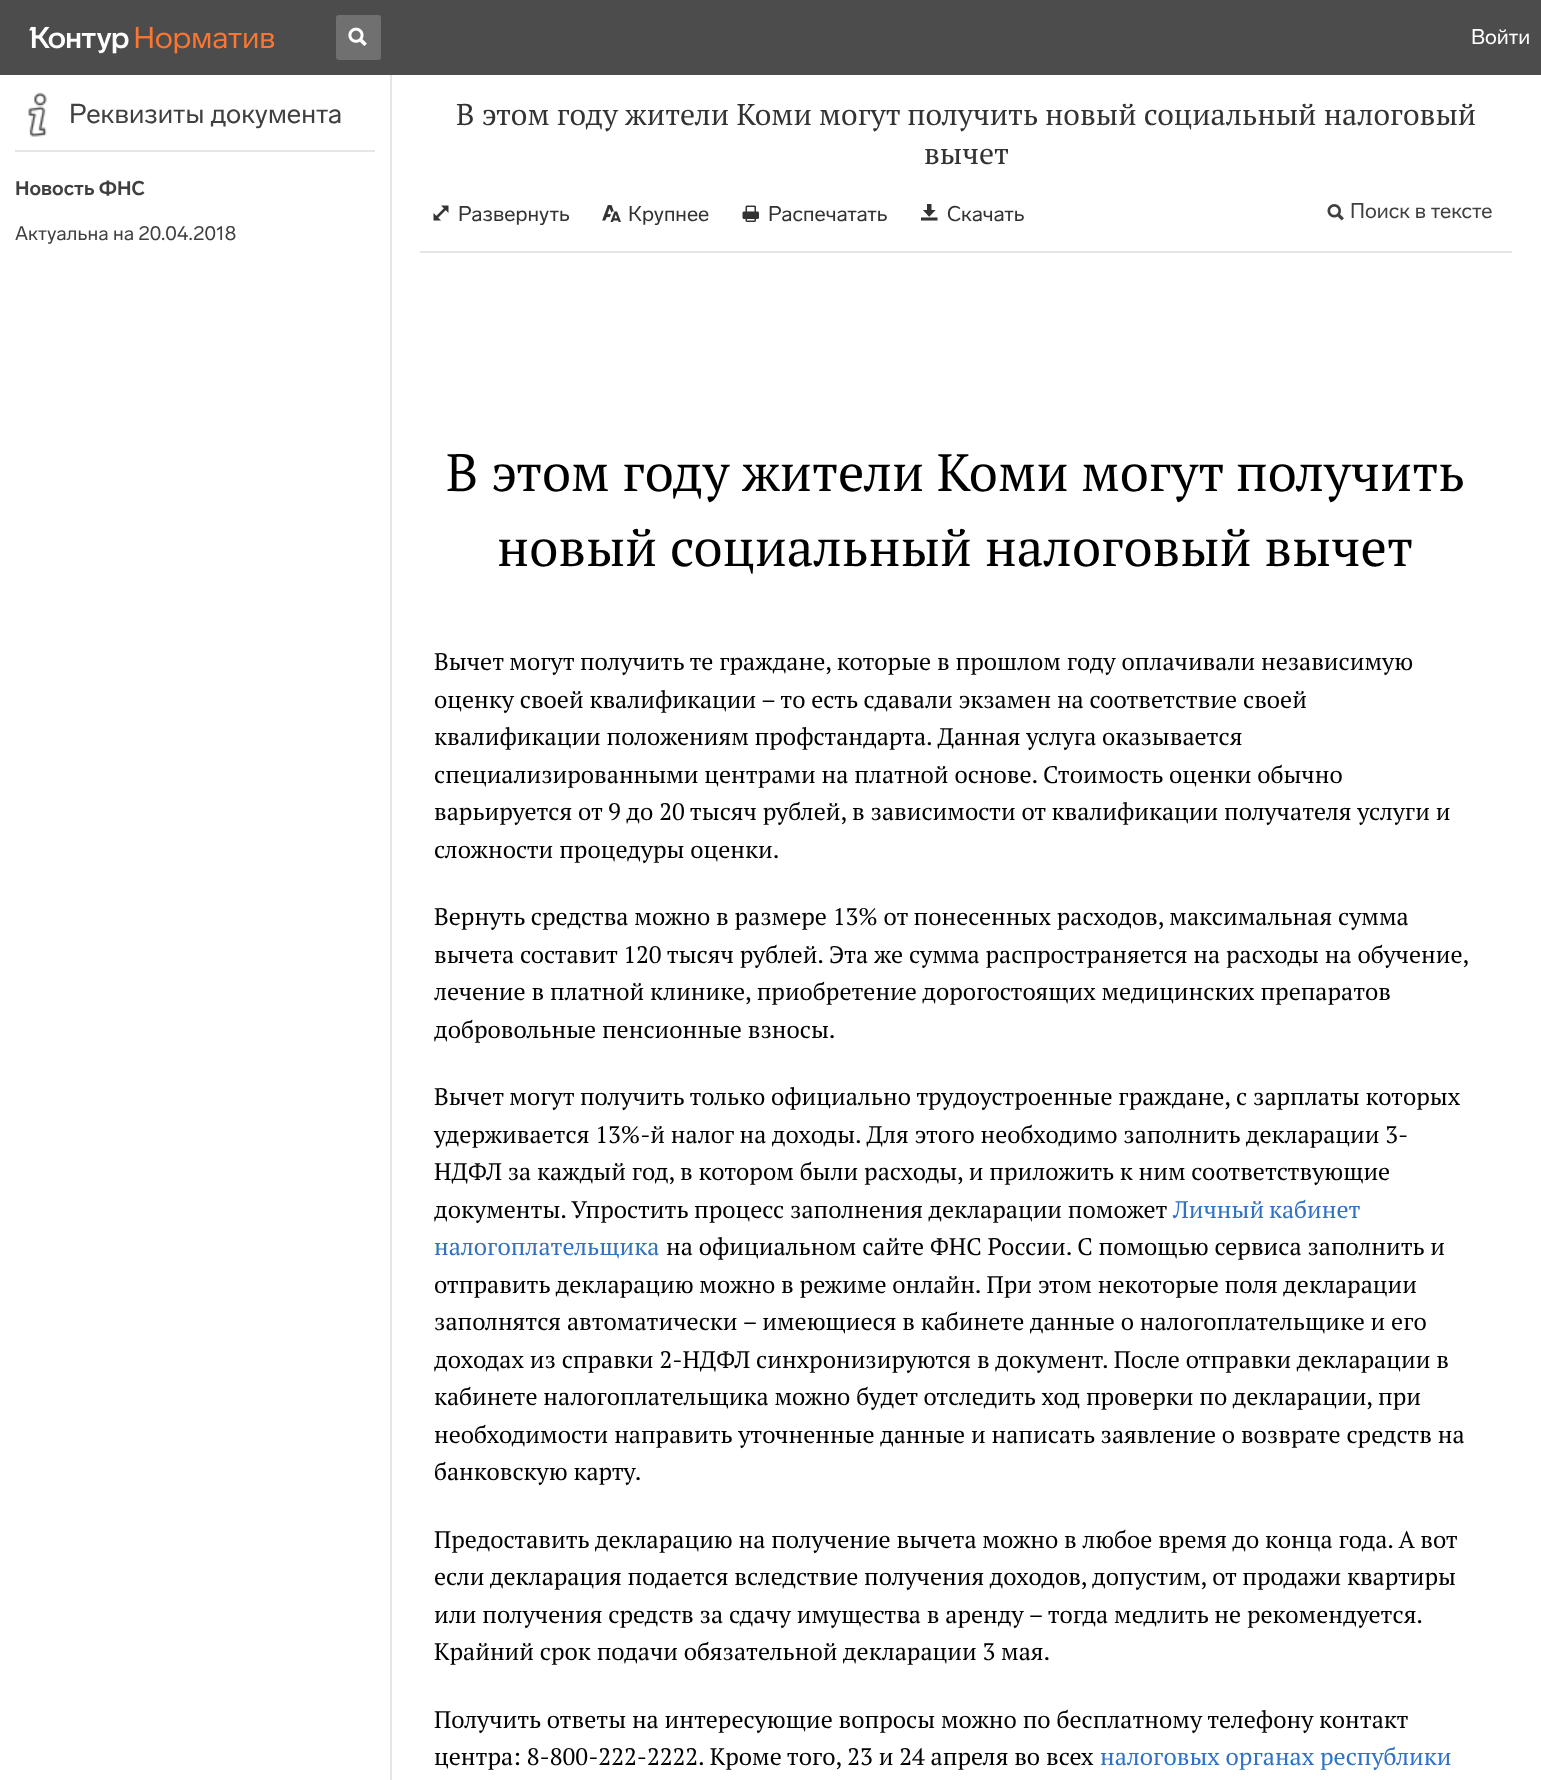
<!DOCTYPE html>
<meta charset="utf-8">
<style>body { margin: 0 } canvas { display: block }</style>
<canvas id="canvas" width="1541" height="1780"></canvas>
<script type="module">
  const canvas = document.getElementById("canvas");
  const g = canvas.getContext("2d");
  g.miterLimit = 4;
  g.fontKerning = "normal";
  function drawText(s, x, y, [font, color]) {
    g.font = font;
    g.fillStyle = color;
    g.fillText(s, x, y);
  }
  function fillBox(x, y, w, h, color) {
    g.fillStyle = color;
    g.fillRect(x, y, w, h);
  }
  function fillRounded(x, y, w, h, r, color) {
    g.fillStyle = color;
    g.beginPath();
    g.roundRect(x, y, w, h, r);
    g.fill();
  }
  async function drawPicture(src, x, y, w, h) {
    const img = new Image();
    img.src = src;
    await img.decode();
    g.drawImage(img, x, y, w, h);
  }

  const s1 = ["21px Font", "#FFFFFF"];
  const s2 = ["27px Font", "#404040"];
  const s3 = ["bold 19.5px Font", "#404040"];
  const s4 = ["19.5px Font", "#404040"];
  const s5 = ["30px PT Serif", "#333333"];
  const s6 = ["21px Font", "#333333"];
  const s7 = ["21px Font", "#404040"];
  const s8 = ["52.5px PT Serif", "#000000"];
  const s9 = ["24px PT Serif", "#000000"];
  const s10 = ["24px PT Serif", "#3072C4"];

  fillBox(0, 0, 1541, 1780, "#FFFFFF");
  fillBox(0, 0, 1541, 75, "#4C4C4C");
  await drawPicture("pic1.png", 29, 26, 100, 28);
  await drawPicture("pic2.png", 135, 26, 140, 28);
  fillRounded(336, 15, 45, 45, 3, "#707070");
  await drawPicture("pic3.png", 348, 27, 19, 19);
  drawText("Войти", 1471, 44, s1);
  fillBox(390, 75, 2, 1705, "#E5E5E5");
  await drawPicture("pic4.png", 28, 92, 19, 45);
  drawText("Реквизиты документа", 69, 123, s2);
  fillBox(15, 150, 360, 2, "#E6E6E6");
  drawText("Новость ФНС", 15, 195, s3);
  drawText("Актуальна на 20.04.2018", 15, 240, s4);
  drawText("В этом году жители Коми могут получить новый социальный налоговый", 456, 125, s5);
  drawText("вычет", 924, 164, s5);
  await drawPicture("pic5.png", 433, 205, 16, 16);
  drawText("Развернуть", 458, 221, s6);
  await drawPicture("pic6.png", 602, 205, 19, 17);
  drawText("Крупнее", 628, 221, s6);
  await drawPicture("pic7.png", 742, 205, 17, 17);
  drawText("Распечатать", 768, 221, s6);
  await drawPicture("pic8.png", 921, 204, 17, 17);
  drawText("Скачать", 947, 221, s6);
  await drawPicture("pic9.png", 1327, 204, 17, 17);
  drawText("Поиск в тексте", 1350, 218, s7);
  fillBox(420, 251, 1092, 2, "#E5E5E5");
  drawText("В этом году жители Коми могут получить", 446, 491, s8);
  drawText("новый социальный налоговый вычет", 497, 566, s8);
  drawText("Вычет могут получить те граждане, которые в прошлом году оплачивали независимую", 434, 670, s9);
  drawText("оценку своей квалификации – то есть сдавали экзамен на соответствие своей", 434, 708, s9);
  drawText("квалификации положениям профстандарта. Данная услуга оказывается", 434, 745, s9);
  drawText("специализированными центрами на платной основе. Стоимость оценки обычно", 434, 783, s9);
  drawText("варьируется от 9 до 20 тысяч рублей, в зависимости от квалификации получателя услуги и", 434, 820, s9);
  drawText("сложности процедуры оценки.", 434, 858, s9);
  drawText("Вернуть средства можно в размере 13% от понесенных расходов, максимальная сумма", 434, 925, s9);
  drawText("вычета составит 120 тысяч рублей. Эта же сумма распространяется на расходы на обучение,", 434, 963, s9);
  drawText("лечение в платной клинике, приобретение дорогостоящих медицинских препаратов", 434, 1000, s9);
  drawText("добровольные пенсионные взносы.", 434, 1038, s9);
  drawText("Вычет могут получить только официально трудоустроенные граждане, с зарплаты которых", 434, 1105, s9);
  drawText("удерживается 13%-й налог на доходы. Для этого необходимо заполнить декларации 3-", 434, 1143, s9);
  drawText("НДФЛ за каждый год, в котором были расходы, и приложить к ним соответствующие", 434, 1180, s9);
  drawText("документы. Упростить процесс заполнения декларации поможет", 434, 1218, s9);
  g.wordSpacing = "-1px";
  drawText("Личный кабинет", 1173, 1218, s10);
  g.wordSpacing = "0px";
  drawText("налогоплательщика", 434, 1255, s10);
  drawText("на официальном сайте ФНС России. С помощью сервиса заполнить и", 666, 1255, s9);
  drawText("отправить декларацию можно в режиме онлайн. При этом некоторые поля декларации", 434, 1293, s9);
  drawText("заполнятся автоматически – имеющиеся в кабинете данные о налогоплательщике и его", 434, 1330, s9);
  drawText("доходах из справки 2-НДФЛ синхронизируются в документ. После отправки декларации в", 434, 1368, s9);
  drawText("кабинете налогоплательщика можно будет отследить ход проверки по декларации, при", 434, 1405, s9);
  drawText("необходимости направить уточненные данные и написать заявление о возврате средств на", 434, 1443, s9);
  drawText("банковскую карту.", 434, 1480, s9);
  drawText("Предоставить декларацию на получение вычета можно в любое время до конца года. А вот", 434, 1548, s9);
  drawText("если декларация подается вследствие получения доходов, допустим, от продажи квартиры", 434, 1585, s9);
  drawText("или получения средств за сдачу имущества в аренду – тогда медлить не рекомендуется.", 434, 1623, s9);
  drawText("Крайний срок подачи обязательной декларации 3 мая.", 434, 1660, s9);
  drawText("Получить ответы на интересующие вопросы можно по бесплатному телефону контакт", 434, 1728, s9);
  drawText("центра: 8-800-222-2222. Кроме того, 23 и 24 апреля во всех", 434, 1765, s9);
  drawText("налоговых органах республики", 1100, 1765, s10);
</script>
